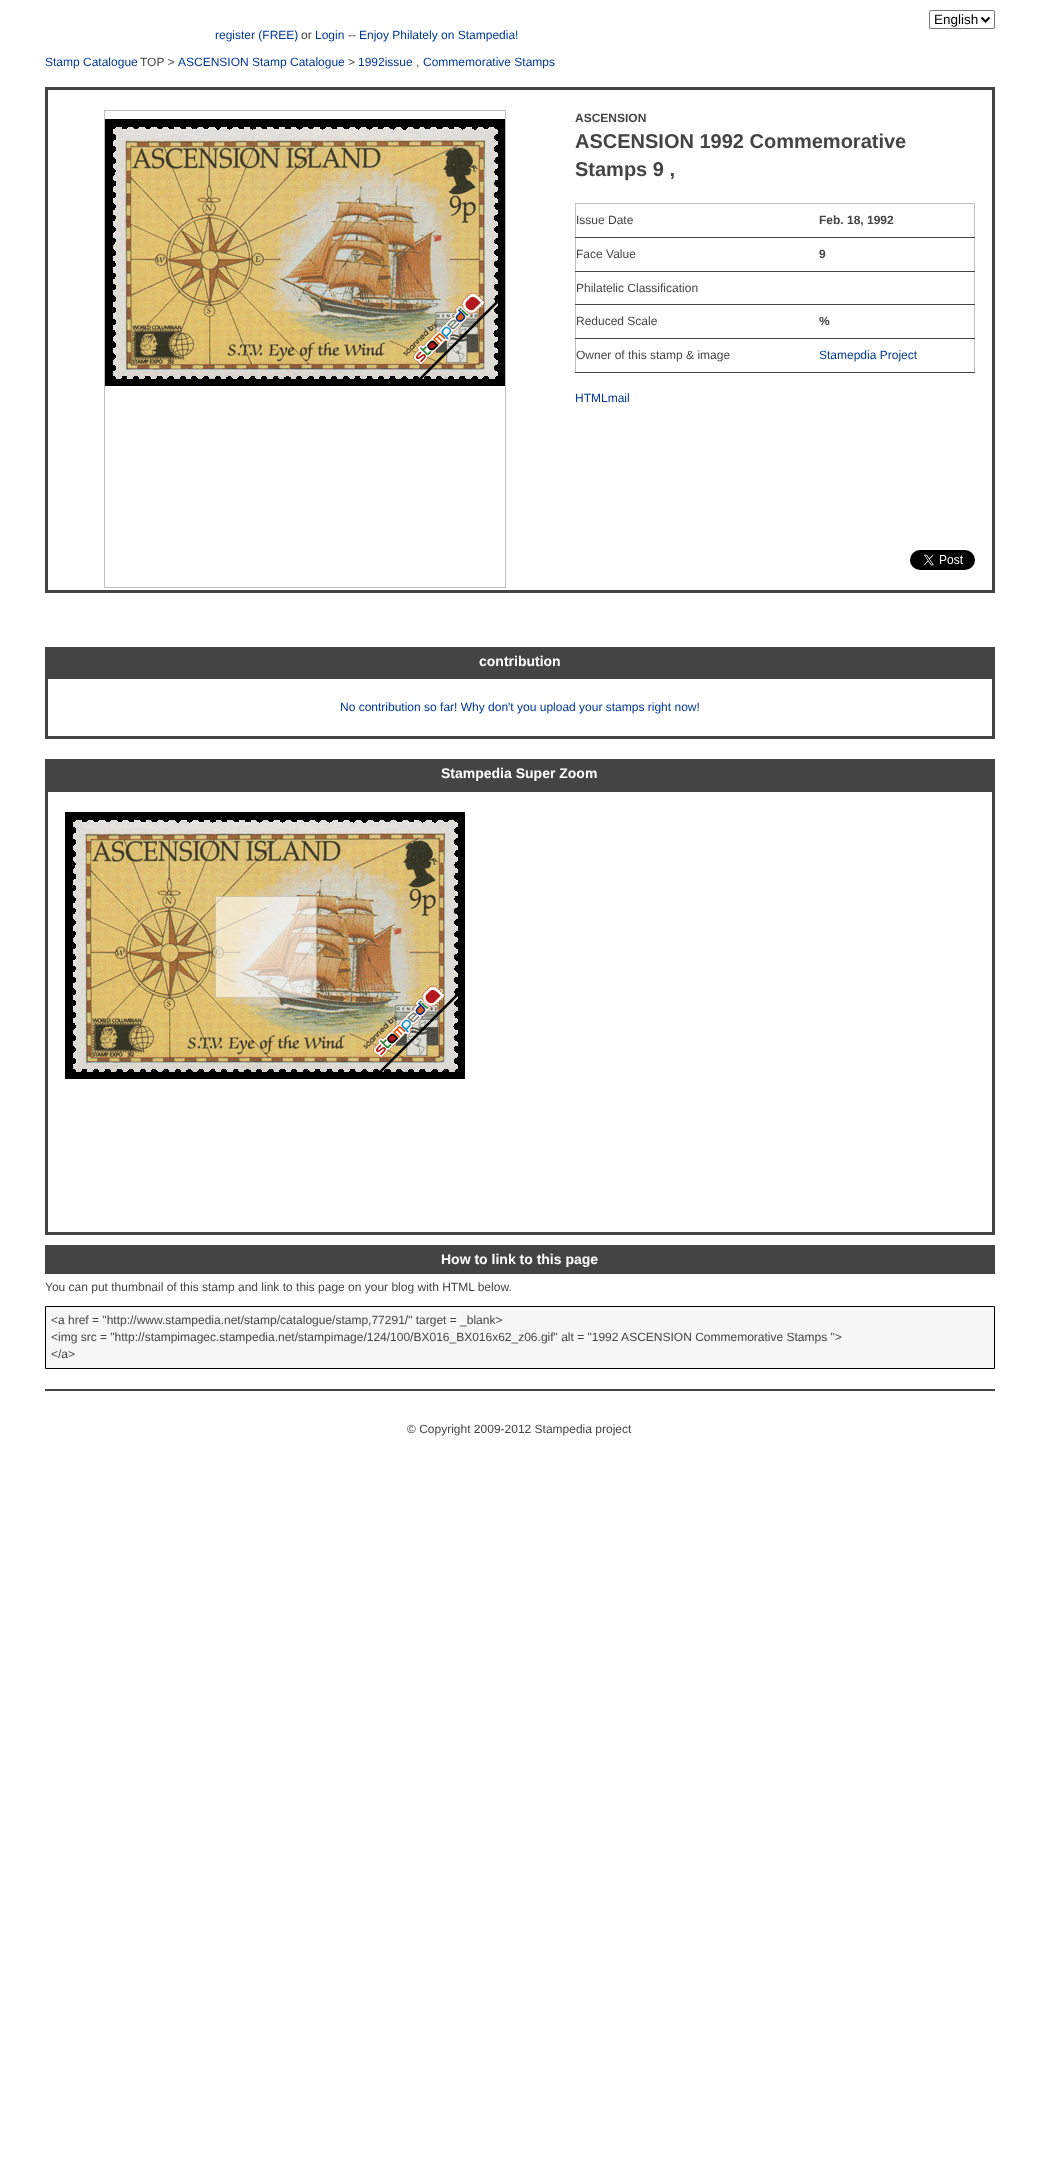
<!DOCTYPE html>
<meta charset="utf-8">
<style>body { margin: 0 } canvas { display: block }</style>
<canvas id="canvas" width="1039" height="2183"></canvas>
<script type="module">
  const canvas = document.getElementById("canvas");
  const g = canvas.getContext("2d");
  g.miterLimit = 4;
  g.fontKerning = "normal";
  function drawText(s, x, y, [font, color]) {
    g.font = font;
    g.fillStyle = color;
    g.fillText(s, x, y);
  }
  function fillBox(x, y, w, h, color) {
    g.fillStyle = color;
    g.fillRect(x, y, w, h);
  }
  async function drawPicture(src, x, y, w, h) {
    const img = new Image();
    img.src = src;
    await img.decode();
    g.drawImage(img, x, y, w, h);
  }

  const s1 = ["13.5px Liberation Sans", "#000000"];
  const s2 = ["12px Liberation Sans", "#003894"];
  const s3 = ["12px Liberation Sans", "#444444"];
  const s4 = ["bold 12px Liberation Sans", "#444444"];
  const s5 = ["bold 20px Liberation Sans", "#444444"];
  const s6 = ["bold 14px Liberation Sans", "#FFFFFF"];

  fillBox(0, 0, 1039, 2183, "#FFFFFF");
  g.beginPath();
  g.roundRect(929.5, 10.5, 65, 18, 1.5);
  g.strokeStyle = "#767676";
  g.stroke();
  g.beginPath();
  g.moveTo(981.5, 17.5);
  g.lineTo(985.5, 21.5);
  g.lineTo(989.5, 17.5);
  g.strokeStyle = "#000000";
  g.lineWidth = 2;
  g.stroke();
  drawText("English", 934, 24, s1);
  drawText("register (FREE)", 215, 39, s2);
  drawText("or", 301, 39, s3);
  drawText("Login", 315, 39, s2);
  drawText("--", 348, 39, s3);
  drawText("Enjoy Philately on Stampedia!", 359, 39, s2);
  drawText("Stamp Catalogue", 45, 66, s2);
  drawText("TOP >", 140, 66, s3);
  drawText("ASCENSION Stamp Catalogue", 178, 66, s2);
  drawText(">", 348, 66, s3);
  drawText("1992issue", 358, 66, s2);
  drawText(",", 416, 66, s3);
  drawText("Commemorative Stamps", 423, 66, s2);
  g.strokeStyle = "#444444";
  g.lineWidth = 3;
  g.strokeRect(46.5, 88.5, 947, 503);
  fillBox(104, 110, 402, 1, "#BFBFBF");
  fillBox(505, 110, 1, 478, "#BFBFBF");
  fillBox(104, 587, 402, 1, "#BFBFBF");
  fillBox(104, 110, 1, 478, "#BFBFBF");
  fillBox(105, 119, 400, 267, "#000000");
  await drawPicture("pic1.png", 113, 127, 385, 252);
  drawText("ASCENSION", 575, 122, s4);
  drawText("ASCENSION 1992 Commemorative", 575, 148, s5);
  drawText("Stamps 9 ,", 575, 176, s5);
  fillBox(575, 203, 400, 1, "#BFBFBF");
  fillBox(974, 237, 1, 136, "#BFBFBF");
  fillBox(974, 203, 1, 35, "#BFBFBF");
  fillBox(575, 237, 1, 136, "#BFBFBF");
  fillBox(575, 203, 1, 35, "#BFBFBF");
  drawText("Issue Date", 576, 224, s3);
  fillBox(575, 237, 400, 1, "#444444");
  drawText("Feb. 18, 1992", 819, 224, s4);
  drawText("Face Value", 576, 258, s3);
  fillBox(575, 271, 400, 1, "#444444");
  drawText("9", 819, 258, s4);
  drawText("Philatelic Classification", 576, 292, s3);
  fillBox(575, 304, 400, 1, "#444444");
  drawText("Reduced Scale", 576, 325, s3);
  fillBox(575, 338, 400, 1, "#444444");
  drawText("%", 819, 325, s4);
  drawText("Owner of this stamp & image", 576, 359, s3);
  fillBox(575, 372, 400, 1, "#444444");
  drawText("Stamepdia Project", 819, 359, s2);
  drawText("HTMLmail", 575, 402, s2);
  await drawPicture("pic2.png", 910, 550, 65, 20);
  fillBox(45, 647, 950, 29, "#444444");
  drawText("contribution", 479, 666, s6);
  g.strokeRect(46.5, 677.5, 947, 60);
  drawText("No contribution so far! Why don't you upload your stamps right now!", 340, 711, s2);
  fillBox(45, 759, 950, 30, "#444444");
  drawText("Stampedia Super Zoom", 441, 778, s6);
  g.strokeRect(46.5, 790.5, 947, 443);
  await drawPicture("pic3.png", 65, 812, 400, 267);
  fillBox(45, 1245, 950, 29, "#444444");
  drawText("How to link to this page", 441, 1264, s6);
  drawText("You can put thumbnail of this stamp and link to this page on your blog with HTML below.", 45, 1291, s3);
  g.fillStyle = "#F6F6F6";
  g.beginPath();
  g.rect(45.5, 1306.5, 949, 62);
  g.fill();
  g.strokeStyle = "#000000";
  g.lineWidth = 1;
  g.stroke();
  drawText("<a href = \"http://www.stampedia.net/stamp/catalogue/stamp,77291/\" target = _blank>", 51, 1324, s3);
  drawText("<img src = \"http://stampimagec.stampedia.net/stampimage/124/100/BX016_BX016x62_z06.gif\" alt = \"1992 ASCENSION Commemorative Stamps \">", 51, 1341, s3);
  drawText("<\/a>", 51, 1358, s3);
  fillBox(45, 1389, 950, 2, "#444444");
  drawText("© Copyright 2009-2012 Stampedia project", 407, 1433, s3);
</script>
